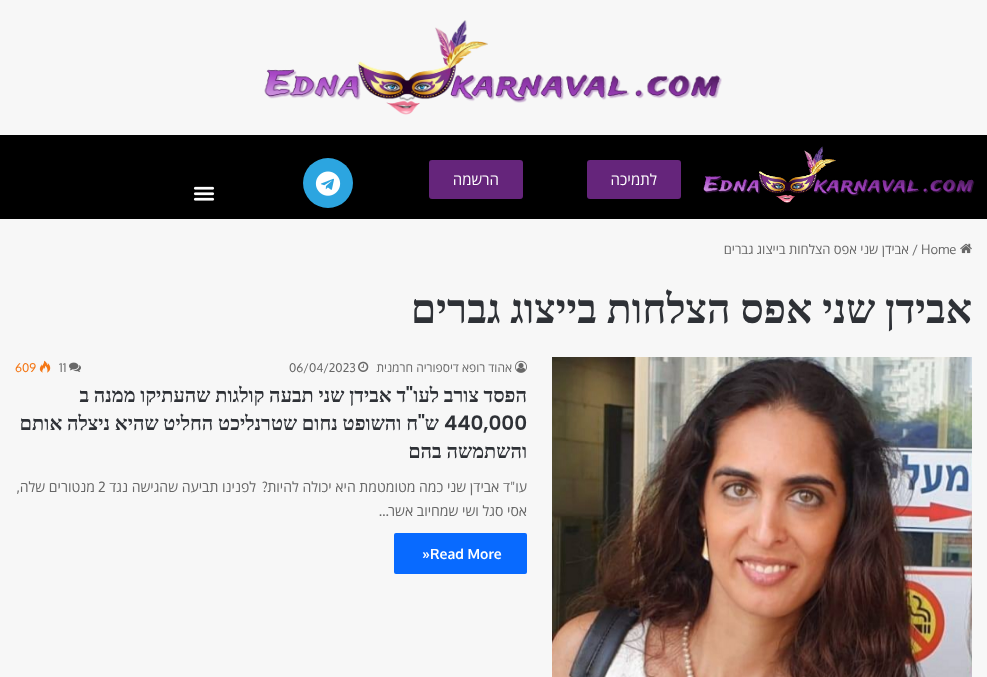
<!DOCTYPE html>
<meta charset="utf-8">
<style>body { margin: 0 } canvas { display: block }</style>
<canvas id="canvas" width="987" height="677"></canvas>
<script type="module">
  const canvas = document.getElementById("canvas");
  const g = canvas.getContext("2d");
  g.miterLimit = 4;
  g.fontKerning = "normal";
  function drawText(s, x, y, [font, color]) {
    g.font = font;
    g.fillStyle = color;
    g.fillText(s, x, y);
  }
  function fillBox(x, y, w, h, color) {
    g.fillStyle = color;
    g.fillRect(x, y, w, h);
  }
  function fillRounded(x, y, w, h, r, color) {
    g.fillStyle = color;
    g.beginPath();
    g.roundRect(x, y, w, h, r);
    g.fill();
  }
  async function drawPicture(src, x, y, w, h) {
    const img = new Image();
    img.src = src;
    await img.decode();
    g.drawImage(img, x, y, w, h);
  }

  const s1 = ["15px Open Sans", "#FFFFFF"];
  const s2 = ["13px Oxygen", "#676767"];
  const s3 = ["13px Open Sans", "#676767"];
  const s4 = ["bold 41px Liberation Serif", "#2E3136"];
  const s5 = ["12px Open Sans", "#676767"];
  const s6 = ["12px Oxygen", "#676767"];
  const s7 = ["12px Oxygen", "#F47614"];
  const s8 = ["bold 20px Liberation Serif", "#2E3136"];
  const s9 = ["600 20px Poppins", "#2E3136"];
  const s10 = ["14px Open Sans", "#676767"];
  const s11 = ["14px Oxygen", "#676767"];
  const s12 = ["bold 14px Oxygen", "#FFFFFF"];

  fillBox(0, 0, 987, 677, "#F7F7F7");
  await drawPicture("pic1.png", 264, 20, 458, 95);
  fillBox(0, 135, 987, 84, "#000000");
  await drawPicture("pic2.png", 703, 146, 272, 57);
  fillRounded(587, 160, 94, 39, 3, "#65257B");
  g.direction = "rtl";
  drawText("לתמיכה", 657, 185, s1);
  fillRounded(429, 160, 94, 39, 3, "#65257B");
  drawText("הרשמה", 499, 185, s1);
  g.fillStyle = "#2CA5E0";
  g.beginPath();
  g.arc(328, 183, 25, 0, Math.PI * 2);
  g.fill();
  await drawPicture("pic3.png", 315, 171, 26, 25);
  await drawPicture("pic4.png", 193, 186, 22, 15);
  await drawPicture("pic5.png", 960, 243, 12, 11);
  g.direction = "ltr";
  drawText("Home", 921, 254, s2);
  drawText("/", 912, 254, s2);
  g.direction = "rtl";
  drawText("אבידן שני אפס הצלחות בייצוג גברים", 909, 254, s3);
  g.wordSpacing = "-0.5px";
  drawText("אבידן שני אפס הצלחות בייצוג גברים", 972, 323, s4);
  await drawPicture("pic6.png", 552, 357, 420, 320);
  await drawPicture("pic7.png", 515, 360, 12, 13);
  g.wordSpacing = "0px";
  drawText("אהוד רופא דיספוריה חרמנית", 512, 372, s5);
  await drawPicture("pic8.png", 358, 361, 11, 11);
  g.direction = "ltr";
  drawText("06/04/2023", 289, 372, s6);
  await drawPicture("pic9.png", 69, 362, 12, 10);
  drawText("11", 59, 372, s6);
  await drawPicture("pic10.png", 39, 360, 12, 13);
  drawText("609", 15, 372, s7);
  g.wordSpacing = "-0.25px";
  g.direction = "rtl";
  drawText("הפסד צורב לעו", 527, 402, s8);
  drawText("ד אבידן שני תבעה קולגות שהעתיקו ממנה ב", 406, 402, s8);
  g.wordSpacing = "0px";
  drawText("\"", 413, 402, s9);
  g.direction = "ltr";
  drawText("440,000", 444, 430, s9);
  g.direction = "rtl";
  drawText("ש", 439, 430, s8);
  drawText("\"", 425, 430, s9);
  g.wordSpacing = "-0.25px";
  drawText("ח והשופט נחום שטרנליכט החליט שהיא ניצלה אותם", 418, 430, s8);
  drawText("והשתמשה בהם", 527, 458, s8);
  g.wordSpacing = "0px";
  drawText("עו", 527, 492, s10);
  drawText("\"", 515, 492, s11);
  drawText("ד אבידן שני כמה מטומטמת היא יכולה להיות", 510, 492, s10);
  drawText("?", 268, 492, s11);
  drawText("לפנינו תביעה שהגישה נגד", 256, 492, s10);
  g.direction = "ltr";
  drawText("2", 98, 492, s11);
  g.direction = "rtl";
  drawText("מנטורים שלה", 95, 492, s10);
  drawText(",", 20, 492, s11);
  drawText("אסי סגל ושי שמחיוב אשר", 527, 516, s10);
  drawText("…", 389, 516, s11);
  fillRounded(394, 533, 133, 41, 2, "#086AFF");
  g.direction = "ltr";
  drawText("»Read More", 422, 559, s12);
</script>
